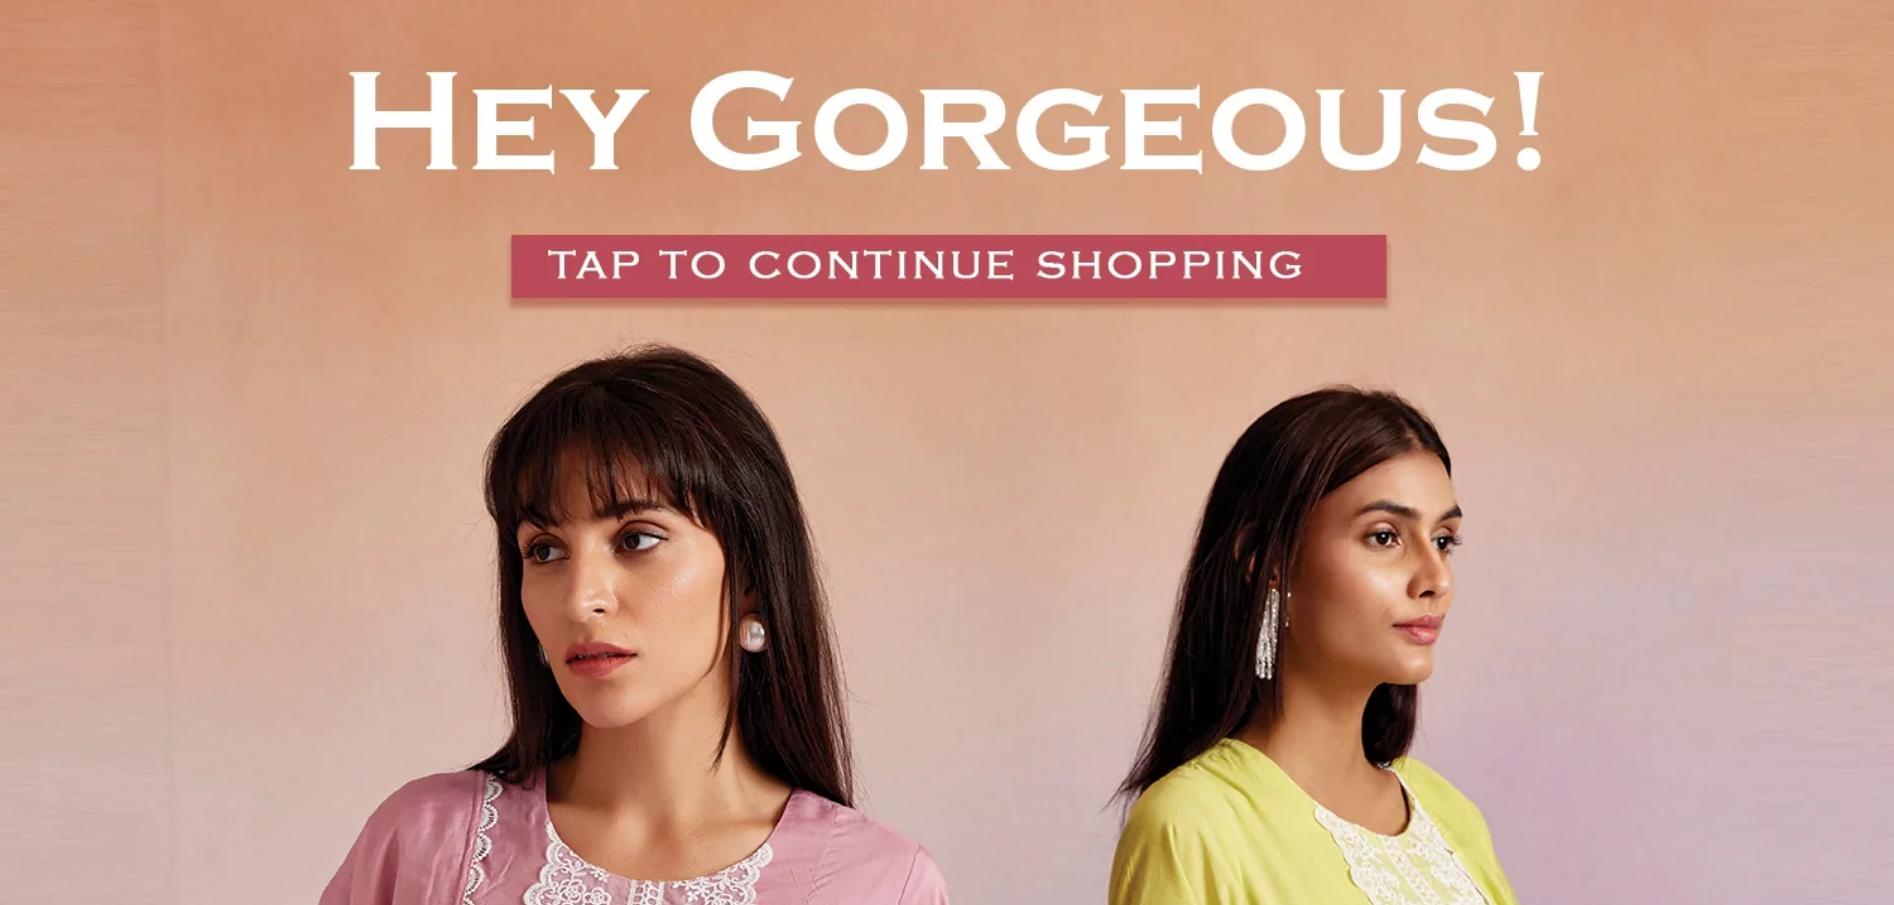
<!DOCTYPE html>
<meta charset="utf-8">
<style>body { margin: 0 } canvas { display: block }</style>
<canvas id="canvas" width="1894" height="905"></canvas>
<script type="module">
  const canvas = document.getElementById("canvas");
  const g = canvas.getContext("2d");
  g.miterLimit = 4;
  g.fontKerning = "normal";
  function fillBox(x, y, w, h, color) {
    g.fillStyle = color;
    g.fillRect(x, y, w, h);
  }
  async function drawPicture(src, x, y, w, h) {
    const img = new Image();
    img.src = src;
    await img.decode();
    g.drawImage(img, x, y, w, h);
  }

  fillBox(0, 0, 1894, 905, "#FFFFFF");
  await drawPicture("pic1.png", 0, 0, 1894, 905);
</script>
